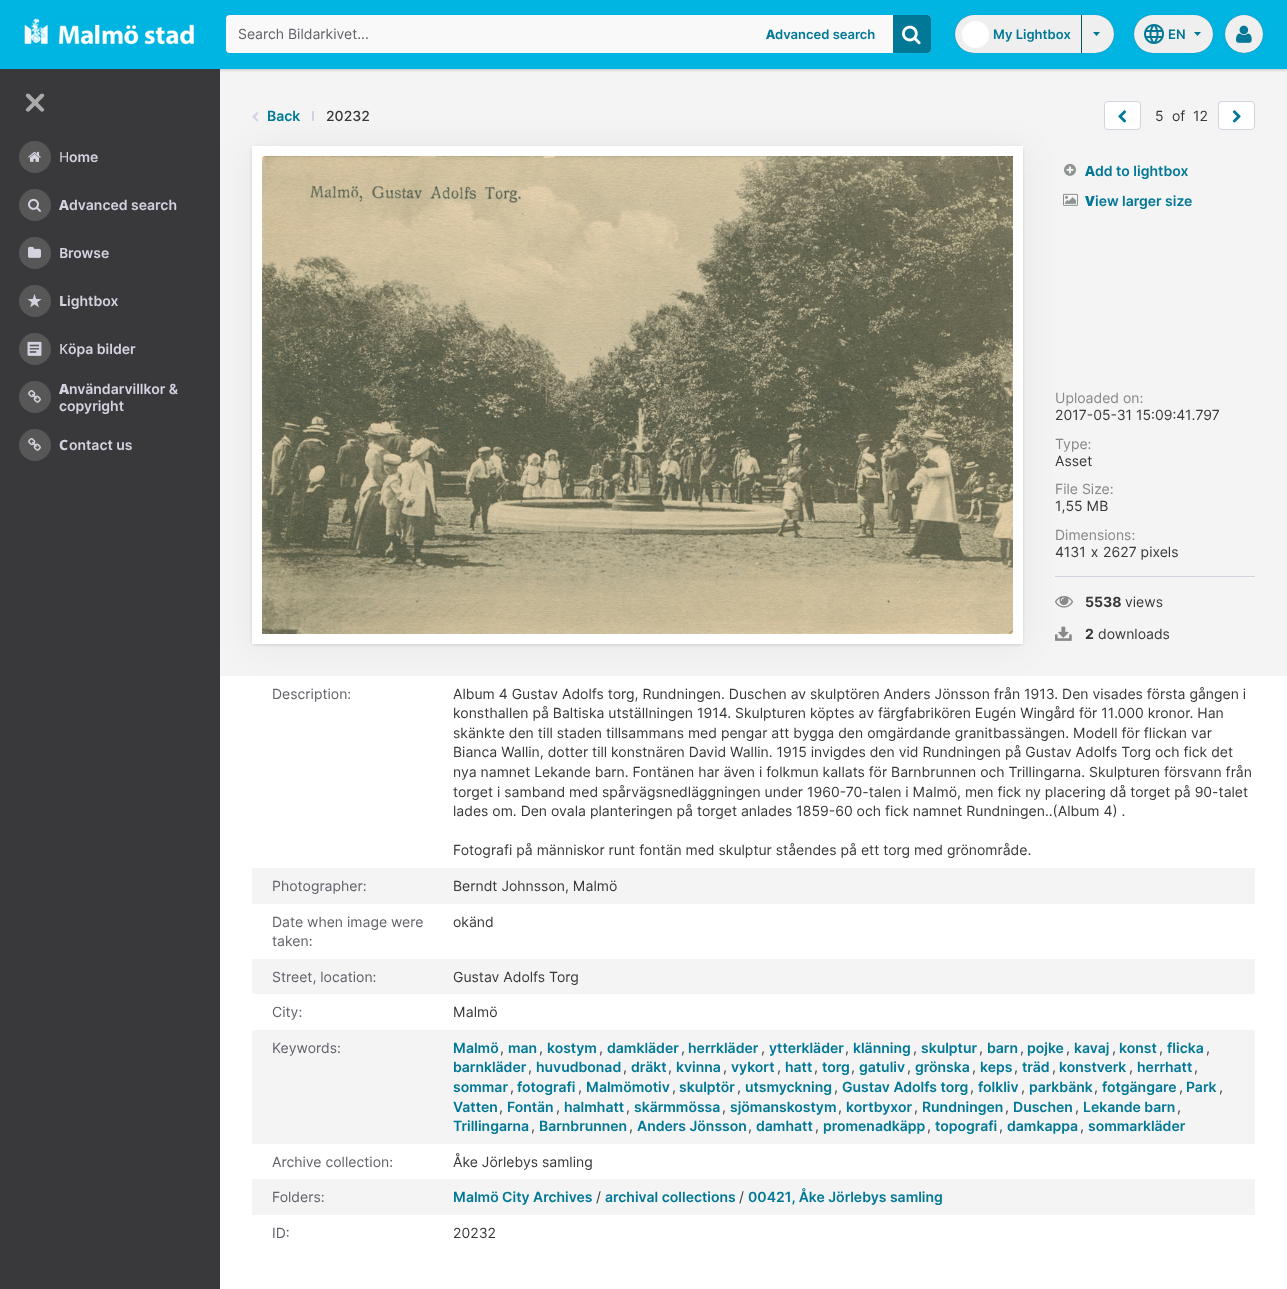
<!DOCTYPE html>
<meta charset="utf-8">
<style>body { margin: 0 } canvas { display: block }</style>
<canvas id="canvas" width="1287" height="1289"></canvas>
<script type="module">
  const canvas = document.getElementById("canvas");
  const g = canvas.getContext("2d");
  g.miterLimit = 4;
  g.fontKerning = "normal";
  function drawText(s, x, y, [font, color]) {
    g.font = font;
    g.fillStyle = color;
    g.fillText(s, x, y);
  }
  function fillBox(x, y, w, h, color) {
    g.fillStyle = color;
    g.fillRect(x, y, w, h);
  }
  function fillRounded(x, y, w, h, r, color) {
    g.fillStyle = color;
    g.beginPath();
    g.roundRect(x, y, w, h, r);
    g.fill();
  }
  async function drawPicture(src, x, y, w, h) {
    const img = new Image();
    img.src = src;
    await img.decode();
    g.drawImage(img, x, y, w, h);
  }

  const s1 = ["14px Inter", "#62626A"];
  const s2 = ["800 13px Noto Sans", "#007896"];
  const s3 = ["600 13px Inter", "#007896"];
  const s4 = ["14px Noto Sans", "#D3D3DF"];
  const s5 = ["600 14px Inter", "#D3D3DF"];
  const s6 = ["800 14px Noto Sans", "#D3D3DF"];
  const s7 = ["600 14px Noto Sans", "#D3D3DF"];
  const s8 = ["500 14px Noto Sans", "#D3D3DF"];
  const s9 = ["900 14px Noto Sans", "#D3D3DF"];
  const s10 = ["600 14px Inter", "#007896"];
  const s11 = ["500 14px Inter", "#39393C"];
  const s12 = ["14px Inter", "#39393C"];
  const s13 = ["800 14px Noto Sans", "#007896"];
  const s14 = ["900 14px Noto Sans", "#007896"];
  const s15 = ["14px Inter", "#888888"];
  const s16 = ["bold 14px Inter", "#39393C"];

  fillBox(0, 0, 1287, 1289, "#FFFFFF");
  fillBox(220, 69, 1067, 607, "#F4F4F5");
  g.fillStyle = "rgba(45, 45, 45, 0.25)";
  g.filter = "blur(1.5px)";
  g.beginPath();
  g.rect(0, 1, 1287, 69);
  g.fill();
  g.filter = "none";
  fillBox(0, 0, 1287, 69, "#00B5E2");
  await drawPicture("pic1.png", 24, 18, 170, 27);
  g.fillStyle = "#969696";
  g.filter = "blur(0.5px)";
  g.beginPath();
  g.roundRect(226, 15, 705, 38, 4);
  g.fill();
  g.filter = "none";
  fillRounded(226, 15, 705, 38, 4, "#F9F9F9");
  drawText("Search Bildarkivet...", 238, 39, s1);
  drawText("A", 766, 39, s2);
  drawText("dvanced search", 775, 39, s3);
  g.beginPath();
  g.roundRect(893, 15, 38, 38, [0, 4, 4, 0]);
  g.fill();
  await drawPicture("pic2.png", 902, 25, 19, 20);
  g.fillStyle = "rgba(0, 0, 0, 0.05)";
  g.filter = "blur(3px)";
  g.beginPath();
  g.roundRect(955, 15, 159, 38, 19);
  g.fill();
  g.filter = "none";
  g.fillStyle = "rgba(0, 0, 0, 0.5)";
  g.filter = "blur(0.5px)";
  g.beginPath();
  g.roundRect(955, 15, 159, 38, 19);
  g.fill();
  g.filter = "none";
  g.fillStyle = "#EFEFEF";
  g.beginPath();
  g.roundRect(955, 15, 126, 38, [19, 0, 0, 19]);
  g.fill();
  g.fillStyle = "#FFFFFF";
  g.beginPath();
  g.arc(975.5, 34.5, 13.5, 0, Math.PI * 2);
  g.fill();
  drawText("My Lightbox", 993, 39, s3);
  g.fillStyle = "#EFEFEF";
  g.beginPath();
  g.roundRect(1082, 15, 32, 38, [0, 19, 19, 0]);
  g.fill();
  g.fillStyle = "#007896";
  g.beginPath();
  g.moveTo(1096.5, 36);
  g.lineTo(1100, 32);
  g.lineTo(1093, 32);
  g.closePath();
  g.fill("evenodd");
  g.fillStyle = "rgba(0, 0, 0, 0.05)";
  g.filter = "blur(3px)";
  g.beginPath();
  g.roundRect(1134, 15, 79, 38, 19);
  g.fill();
  g.filter = "none";
  g.fillStyle = "rgba(0, 0, 0, 0.5)";
  g.filter = "blur(0.5px)";
  g.beginPath();
  g.roundRect(1134, 15, 79, 38, 19);
  g.fill();
  g.filter = "none";
  fillRounded(1134, 15, 79, 38, 19, "#EFEFEF");
  await drawPicture("pic3.png", 1144, 24, 20, 20);
  drawText("EN", 1168, 39, s3);
  g.beginPath();
  g.moveTo(1197.5, 36);
  g.lineTo(1201, 32);
  g.lineTo(1194, 32);
  g.closePath();
  g.fill("evenodd");
  g.fillStyle = "rgba(0, 0, 0, 0.05)";
  g.filter = "blur(3px)";
  g.beginPath();
  g.roundRect(1225, 15, 38, 38, 19);
  g.fill();
  g.filter = "none";
  g.fillStyle = "rgba(0, 0, 0, 0.5)";
  g.filter = "blur(0.5px)";
  g.beginPath();
  g.roundRect(1225, 15, 38, 38, 19);
  g.fill();
  g.filter = "none";
  g.fillStyle = "#EFEFEF";
  g.beginPath();
  g.arc(1244, 34, 19, 0, Math.PI * 2);
  g.fill();
  await drawPicture("pic4.png", 1236, 25, 16, 18);
  await drawPicture("pic11.png", 252, 112, 7, 10);
  fillBox(312, 111, 2, 10, "#D3D3DF");
  fillBox(1055, 576, 200, 1, "#D3D3DF");
  await drawPicture("pic17.png", 1055, 596, 18, 12);
  await drawPicture("pic18.png", 1055, 626, 17, 15);
  g.fillStyle = "rgba(0, 0, 0, 0.06)";
  g.filter = "blur(17.5px)";
  g.beginPath();
  g.roundRect(252, 148, 771, 498, 4);
  g.fill();
  g.filter = "none";
  fillBox(0, 69, 220, 1220, "#39393C");
  g.fillStyle = "#AAAAAA";
  g.beginPath();
  g.moveTo(29.5, 94);
  g.lineTo(43.5, 108.5);
  g.bezierCurveTo(44.5, 109, 44.5, 110.5, 43.5, 111);
  g.bezierCurveTo(42.5, 112, 41.5, 112, 40.5, 111);
  g.lineTo(26.5, 97);
  g.bezierCurveTo(25.5, 96, 25.5, 95, 26.5, 94);
  g.bezierCurveTo(27.5, 93.5, 28.5, 93.5, 29.5, 94);
  g.closePath();
  g.fill();
  g.beginPath();
  g.moveTo(26.5, 108.5);
  g.lineTo(40.5, 94);
  g.bezierCurveTo(41.5, 93.5, 42.5, 93.5, 43.5, 94);
  g.bezierCurveTo(44.5, 95, 44.5, 96, 43.5, 97);
  g.lineTo(29.5, 111);
  g.bezierCurveTo(28.5, 112, 27.5, 112, 26.5, 111);
  g.bezierCurveTo(25.5, 110.5, 25.5, 109, 26.5, 108.5);
  g.closePath();
  g.fill();
  g.fillStyle = "#575757";
  g.beginPath();
  g.arc(35, 157, 16, 0, Math.PI * 2);
  g.fill();
  await drawPicture("pic5.png", 28, 151, 13, 11);
  drawText("H", 59, 162, s4);
  drawText("ome", 69, 162, s5);
  g.fillStyle = "#575757";
  g.beginPath();
  g.arc(35, 205, 16, 0, Math.PI * 2);
  g.fill();
  await drawPicture("pic6.png", 28, 198, 13, 14);
  drawText("A", 59, 210, s6);
  drawText("dvanced search", 69, 210, s5);
  g.fillStyle = "#575757";
  g.beginPath();
  g.arc(35, 253, 16, 0, Math.PI * 2);
  g.fill();
  await drawPicture("pic7.png", 28, 246, 13, 12);
  drawText("B", 59, 258, s7);
  drawText("rowse", 68, 258, s5);
  g.fillStyle = "#575757";
  g.beginPath();
  g.arc(35, 301, 16, 0, Math.PI * 2);
  g.fill();
  await drawPicture("pic8.png", 27, 294, 15, 14);
  drawText("L", 59, 306, s6);
  drawText("ightbox", 67, 306, s5);
  g.fillStyle = "#575757";
  g.beginPath();
  g.arc(35, 349, 16, 0, Math.PI * 2);
  g.fill();
  await drawPicture("pic9.png", 27, 341, 15, 15);
  drawText("K", 59, 354, s8);
  drawText("öpa bilder", 68, 354, s5);
  g.fillStyle = "#575757";
  g.beginPath();
  g.arc(35, 397, 16, 0, Math.PI * 2);
  g.fill();
  await drawPicture("pic10.png", 28, 390, 13, 13);
  drawText("A", 59, 394, s9);
  drawText("nvändarvillkor &", 69, 394, s5);
  drawText("copyright", 59, 411, s5);
  g.fillStyle = "#575757";
  g.beginPath();
  g.arc(35, 445, 16, 0, Math.PI * 2);
  g.fill();
  await drawPicture("pic10.png", 28, 438, 13, 13);
  drawText("C", 59, 450, s6);
  drawText("ontact us", 69, 450, s5);
  drawText("Back", 267, 121, s10);
  drawText("20232", 326, 121, s11);
  g.fillStyle = "#FFFFFF";
  g.beginPath();
  g.roundRect(1104.5, 101.5, 36, 28, 3.5);
  g.fill();
  g.strokeStyle = "#D3D3DF";
  g.stroke();
  await drawPicture("pic12.png", 1118, 110, 9, 13);
  drawText("5", 1155, 121, s12);
  drawText("of", 1172, 121, s12);
  drawText("12", 1193, 121, s12);
  g.fillStyle = "#FFFFFF";
  g.beginPath();
  g.roundRect(1218.5, 101.5, 36, 28, 3.5);
  g.fill();
  g.stroke();
  await drawPicture("pic13.png", 1232, 110, 9, 13);
  g.fillStyle = "rgba(0, 0, 0, 0.13)";
  g.filter = "blur(1.5px)";
  g.beginPath();
  g.roundRect(252, 147, 771, 498, 4);
  g.fill();
  g.filter = "none";
  g.beginPath();
  g.moveTo(257, 151);
  g.lineTo(1018, 151);
  g.lineTo(1018, 639);
  g.lineTo(257, 639);
  g.closePath();
  g.strokeStyle = "#FFFFFF";
  g.lineWidth = 10;
  g.stroke();
  await drawPicture("pic14.png", 262, 156, 751, 478);
  await drawPicture("pic15.png", 1064, 163, 12, 13);
  drawText("A", 1085, 176, s13);
  drawText("dd to lightbox", 1095, 176, s10);
  await drawPicture("pic16.png", 1063, 193, 15, 13);
  drawText("V", 1085, 206, s14);
  drawText("iew larger size", 1095, 206, s10);
  drawText("Uploaded on:", 1055, 403, s15);
  drawText("2017-05-31 15:09:41.797", 1055, 420, s12);
  drawText("Type:", 1055, 449, s15);
  drawText("Asset", 1055, 466, s12);
  drawText("File Size:", 1055, 494, s15);
  drawText("1,55 MB", 1055, 511, s12);
  drawText("Dimensions:", 1055, 540, s15);
  g.wordSpacing = "1px";
  drawText("4131 x", 1055, 557, s12);
  g.wordSpacing = "0px";
  drawText("2627 pixels", 1103, 557, s12);
  drawText("5538", 1085, 607, s16);
  drawText("views", 1125, 607, s12);
  drawText("2", 1085, 639, s16);
  drawText("downloads", 1098, 639, s12);
  drawText("Description:", 272, 699, s1);
  drawText("Album 4 Gustav Adolfs torg, Rundningen. Duschen av skulptören Anders Jönsson från 1913. Den visades första gången i", 453, 699, s12);
  drawText("konsthallen på Baltiska utställningen 1914. Skulpturen köptes av färgfabrikören Eugén Wingård för 11.000 kronor. Han", 453, 718, s12);
  drawText("skänkte den till staden tillsammans med pengar att bygga den omgärdande granitbassängen. Modell för flickan var", 453, 738, s12);
  drawText("Bianca Wallin, dotter till konstnären David Wallin. 1915 invigdes den vid Rundningen på Gustav Adolfs Torg och fick det", 453, 757, s12);
  drawText("nya namnet Lekande barn. Fontänen har även i folkmun kallats för Barnbrunnen och Trillingarna. Skulpturen försvann från", 453, 777, s12);
  drawText("torget i samband med spårvägsnedläggningen under 1960-70-talen i Malmö, men fick ny placering då torget på 90-talet", 453, 797, s12);
  drawText("lades om. Den ovala planteringen på torget anlades 1859-60 och fick namnet Rundningen..(Album 4) .", 453, 816, s12);
  drawText("Fotografi på människor runt fontän med skulptur ståendes på ett torg med grönområde.", 453, 855, s12);
  fillBox(252, 868, 1003, 36, "#F4F4F5");
  drawText("Photographer:", 272, 891, s1);
  drawText("Berndt Johnsson, Malmö", 453, 891, s12);
  drawText("Date when image were", 272, 927, s1);
  drawText("taken:", 272, 946, s1);
  drawText("okänd", 453, 927, s12);
  fillBox(252, 959, 1003, 35, "#F4F4F5");
  drawText("Street, location:", 272, 982, s1);
  drawText("Gustav Adolfs Torg", 453, 982, s12);
  drawText("City:", 272, 1017, s1);
  drawText("Malmö", 453, 1017, s12);
  fillBox(252, 1030, 1003, 114, "#F4F4F5");
  drawText("Keywords:", 272, 1053, s1);
  drawText("Malmö", 453, 1053, s10);
  drawText(",", 500, 1053, s12);
  drawText("man", 508, 1053, s10);
  drawText(",", 539, 1053, s12);
  drawText("kostym", 547, 1053, s10);
  drawText(",", 599, 1053, s12);
  drawText("damkläder", 607, 1053, s10);
  drawText(",", 681, 1053, s12);
  drawText("herrkläder", 688, 1053, s10);
  drawText(",", 761, 1053, s12);
  drawText("ytterkläder", 769, 1053, s10);
  drawText(",", 845, 1053, s12);
  drawText("klänning", 853, 1053, s10);
  drawText(",", 913, 1053, s12);
  drawText("skulptur", 921, 1053, s10);
  drawText(",", 979, 1053, s12);
  drawText("barn", 987, 1053, s10);
  drawText(",", 1020, 1053, s12);
  drawText("pojke", 1027, 1053, s10);
  drawText(",", 1066, 1053, s12);
  drawText("kavaj", 1074, 1053, s10);
  drawText(",", 1112, 1053, s12);
  drawText("konst", 1119, 1053, s10);
  drawText(",", 1159, 1053, s12);
  drawText("flicka", 1167, 1053, s10);
  drawText(",", 1206, 1053, s12);
  drawText("barnkläder", 453, 1072, s10);
  drawText(",", 528, 1072, s12);
  drawText("huvudbonad", 536, 1072, s10);
  drawText(",", 623, 1072, s12);
  drawText("dräkt", 631, 1072, s10);
  drawText(",", 668, 1072, s12);
  drawText("kvinna", 676, 1072, s10);
  drawText(",", 723, 1072, s12);
  drawText("vykort", 731, 1072, s10);
  drawText(",", 777, 1072, s12);
  drawText("hatt", 785, 1072, s10);
  drawText(",", 814, 1072, s12);
  drawText("torg", 822, 1072, s10);
  drawText(",", 851, 1072, s12);
  drawText("gatuliv", 859, 1072, s10);
  drawText(",", 907, 1072, s12);
  drawText("grönska", 915, 1072, s10);
  drawText(",", 972, 1072, s12);
  drawText("keps", 980, 1072, s10);
  drawText(",", 1014, 1072, s12);
  drawText("träd", 1022, 1072, s10);
  drawText(",", 1052, 1072, s12);
  drawText("konstverk", 1059, 1072, s10);
  drawText(",", 1129, 1072, s12);
  drawText("herrhatt", 1137, 1072, s10);
  drawText(",", 1194, 1072, s12);
  drawText("sommar", 453, 1092, s10);
  drawText(",", 510, 1092, s12);
  drawText("fotografi", 517, 1092, s10);
  drawText(",", 578, 1092, s12);
  drawText("Malmömotiv", 586, 1092, s10);
  drawText(",", 672, 1092, s12);
  drawText("skulptör", 679, 1092, s10);
  drawText(",", 737, 1092, s12);
  drawText("utsmyckning", 745, 1092, s10);
  drawText(",", 834, 1092, s12);
  drawText("Gustav Adolfs torg", 842, 1092, s10);
  drawText(",", 970, 1092, s12);
  drawText("folkliv", 978, 1092, s10);
  drawText(",", 1021, 1092, s12);
  drawText("parkbänk", 1029, 1092, s10);
  drawText(",", 1094, 1092, s12);
  drawText("fotgängare", 1102, 1092, s10);
  drawText(",", 1179, 1092, s12);
  drawText("Park", 1186, 1092, s10);
  drawText(",", 1219, 1092, s12);
  drawText("Vatten", 453, 1112, s10);
  drawText(",", 499, 1112, s12);
  drawText("Fontän", 507, 1112, s10);
  drawText(",", 556, 1112, s12);
  drawText("halmhatt", 564, 1112, s10);
  drawText(",", 626, 1112, s12);
  drawText("skärmmössa", 634, 1112, s10);
  drawText(",", 722, 1112, s12);
  drawText("sjömanskostym", 730, 1112, s10);
  drawText(",", 838, 1112, s12);
  drawText("kortbyxor", 846, 1112, s10);
  drawText(",", 914, 1112, s12);
  drawText("Rundningen", 922, 1112, s10);
  drawText(",", 1005, 1112, s12);
  drawText("Duschen", 1013, 1112, s10);
  drawText(",", 1075, 1112, s12);
  drawText("Lekande barn", 1083, 1112, s10);
  drawText(",", 1177, 1112, s12);
  drawText("Trillingarna", 453, 1131, s10);
  drawText(",", 531, 1131, s12);
  drawText("Barnbrunnen", 539, 1131, s10);
  drawText(",", 629, 1131, s12);
  drawText("Anders Jönsson", 637, 1131, s10);
  drawText(",", 748, 1131, s12);
  drawText("damhatt", 756, 1131, s10);
  drawText(",", 815, 1131, s12);
  drawText("promenadkäpp", 823, 1131, s10);
  drawText(",", 927, 1131, s12);
  drawText("topografi", 935, 1131, s10);
  drawText(",", 999, 1131, s12);
  drawText("damkappa", 1007, 1131, s10);
  drawText(",", 1080, 1131, s12);
  drawText("sommarkläder", 1088, 1131, s10);
  drawText("Archive collection:", 272, 1167, s1);
  drawText("Åke Jörlebys samling", 453, 1167, s12);
  fillBox(252, 1179, 1003, 36, "#F4F4F5");
  drawText("Folders:", 272, 1202, s1);
  drawText("Malmö City Archives", 453, 1202, s10);
  drawText("/", 596, 1202, s12);
  drawText("archival collections", 605, 1202, s10);
  drawText("/", 739, 1202, s12);
  drawText("00421, Åke Jörlebys samling", 748, 1202, s10);
  drawText("ID:", 272, 1238, s1);
  drawText("20232", 453, 1238, s12);
</script>
